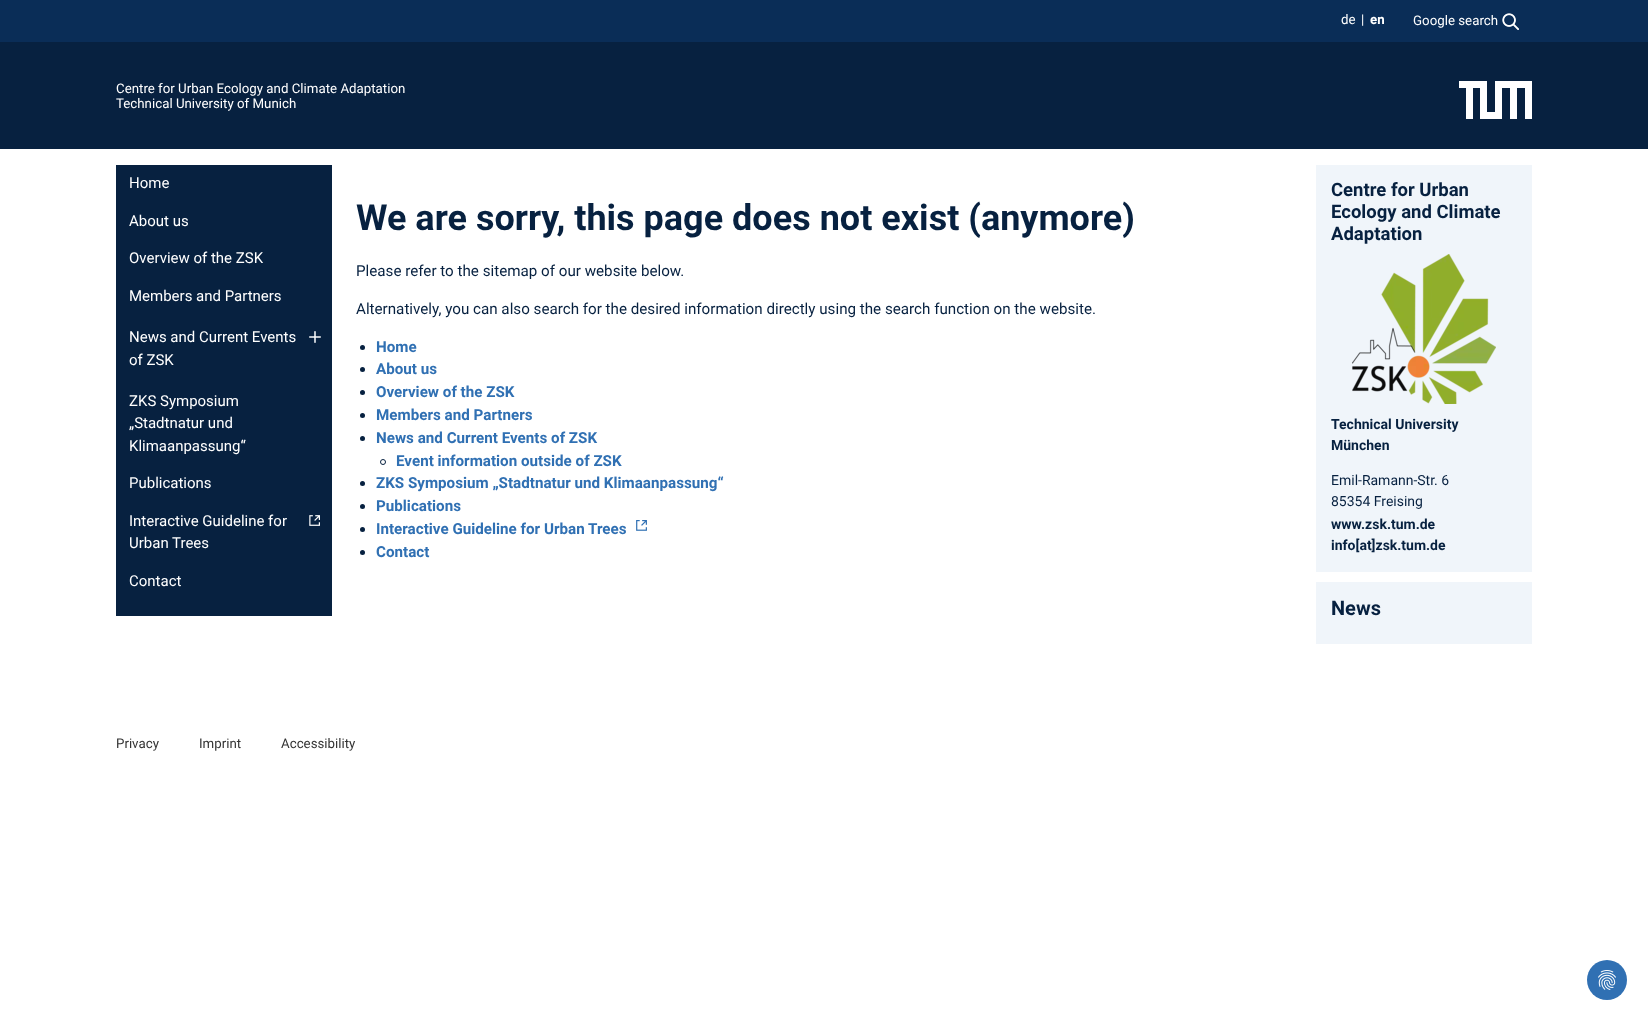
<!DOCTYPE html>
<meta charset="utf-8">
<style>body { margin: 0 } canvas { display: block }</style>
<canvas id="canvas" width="1648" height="1021"></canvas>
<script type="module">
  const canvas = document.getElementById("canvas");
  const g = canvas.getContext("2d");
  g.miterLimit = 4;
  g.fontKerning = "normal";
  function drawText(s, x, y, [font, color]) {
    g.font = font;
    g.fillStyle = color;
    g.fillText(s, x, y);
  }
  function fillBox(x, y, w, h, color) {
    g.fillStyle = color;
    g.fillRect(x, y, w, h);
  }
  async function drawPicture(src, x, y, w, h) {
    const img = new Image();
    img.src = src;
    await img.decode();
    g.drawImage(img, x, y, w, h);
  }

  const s1 = ["13.3px Roboto", "#FFFFFF"];
  const s2 = ["bold 13.3px Roboto", "#FFFFFF"];
  const s3 = ["15px Roboto", "#FFFFFF"];
  const s4 = ["bold 36px Roboto", "#072140"];
  const s5 = ["15.2px Roboto", "#072140"];
  const s6 = ["bold 15.2px Roboto", "#3070B3"];
  const s7 = ["bold 18.5px Roboto", "#072140"];
  const s8 = ["bold 14px Roboto", "#072140"];
  const s9 = ["14px Roboto", "#072140"];
  const s10 = ["bold 20px Roboto", "#072140"];
  const s11 = ["13.3px Roboto", "#333333"];

  fillBox(0, 0, 1648, 1021, "#FFFFFF");
  fillBox(0, 0, 1648, 42, "#0A2D57");
  drawText("de", 1341, 24, s1);
  drawText("|", 1361, 24, s1);
  drawText("en", 1370, 24, s2);
  drawText("Google search", 1413, 25, s1);
  await drawPicture("pic1.png", 1502, 13, 17, 17);
  fillBox(0, 42, 1648, 107, "#072140");
  drawText("Centre for Urban Ecology and Climate Adaptation", 116, 93, s1);
  drawText("Technical University of Munich", 116, 108, s1);
  await drawPicture("pic2.png", 1459, 81, 73, 38);
  fillBox(116, 165, 216, 451, "#072140");
  drawText("Home", 129, 188, s3);
  drawText("About us", 129, 226, s3);
  drawText("Overview of the ZSK", 129, 263, s3);
  drawText("Members and Partners", 129, 301, s3);
  drawText("News and Current Events", 129, 342, s3);
  drawText("of ZSK", 129, 365, s3);
  await drawPicture("pic3.png", 309, 331, 12, 12);
  drawText("ZKS Symposium", 129, 406, s3);
  drawText("„Stadtnatur und", 129, 428, s3);
  drawText("Klimaanpassung“", 129, 451, s3);
  drawText("Publications", 129, 488, s3);
  drawText("Interactive Guideline for", 129, 526, s3);
  await drawPicture("pic4.png", 309, 515, 11, 11);
  drawText("Urban Trees", 129, 548, s3);
  drawText("Contact", 129, 586, s3);
  drawText("We are sorry, this page does not exist (anymore)", 356, 230, s4);
  drawText("Please refer to the sitemap of our website below.", 356, 276, s5);
  drawText("Alternatively, you can also search for the desired information directly using the search function on the website.", 356, 314, s5);
  g.beginPath();
  g.arc(362.5, 347.5, 2.5, 0, Math.PI * 2);
  g.fill();
  drawText("Home", 376, 352, s6);
  g.fillStyle = "#072140";
  g.beginPath();
  g.arc(362.5, 369.5, 2.5, 0, Math.PI * 2);
  g.fill();
  drawText("About us", 376, 374, s6);
  g.fillStyle = "#072140";
  g.beginPath();
  g.arc(362.5, 392.5, 2.5, 0, Math.PI * 2);
  g.fill();
  drawText("Overview of the ZSK", 376, 397, s6);
  g.fillStyle = "#072140";
  g.beginPath();
  g.arc(362.5, 415.5, 2.5, 0, Math.PI * 2);
  g.fill();
  drawText("Members and Partners", 376, 420, s6);
  g.fillStyle = "#072140";
  g.beginPath();
  g.arc(362.5, 438.5, 2.5, 0, Math.PI * 2);
  g.fill();
  drawText("News and Current Events of ZSK", 376, 443, s6);
  g.beginPath();
  g.arc(383, 462, 2.5, 0, Math.PI * 2);
  g.strokeStyle = "#072140";
  g.stroke();
  drawText("Event information outside of ZSK", 396, 466, s6);
  g.fillStyle = "#072140";
  g.beginPath();
  g.arc(362.5, 483.5, 2.5, 0, Math.PI * 2);
  g.fill();
  drawText("ZKS Symposium „Stadtnatur und Klimaanpassung“", 376, 488, s6);
  g.fillStyle = "#072140";
  g.beginPath();
  g.arc(362.5, 506.5, 2.5, 0, Math.PI * 2);
  g.fill();
  drawText("Publications", 376, 511, s6);
  g.fillStyle = "#072140";
  g.beginPath();
  g.arc(362.5, 529.5, 2.5, 0, Math.PI * 2);
  g.fill();
  drawText("Interactive Guideline for Urban Trees", 376, 534, s6);
  await drawPicture("pic5.png", 636, 520, 11, 11);
  g.fillStyle = "#072140";
  g.beginPath();
  g.arc(362.5, 552.5, 2.5, 0, Math.PI * 2);
  g.fill();
  drawText("Contact", 376, 557, s6);
  fillBox(1316, 165, 216, 407, "#F0F5FA");
  drawText("Centre for Urban", 1331, 196, s7);
  drawText("Ecology and Climate", 1331, 218, s7);
  drawText("Adaptation", 1331, 240, s7);
  await drawPicture("pic6.png", 1352, 254, 144, 150);
  drawText("Technical University", 1331, 429, s8);
  drawText("München", 1331, 450, s8);
  drawText("Emil-Ramann-Str. 6", 1331, 485, s9);
  drawText("85354 Freising", 1331, 506, s9);
  drawText("www.zsk.tum.de", 1331, 529, s8);
  drawText("info[at]zsk.tum.de", 1331, 550, s8);
  fillBox(1316, 582, 216, 62, "#F0F5FA");
  drawText("News", 1331, 615, s10);
  drawText("Privacy", 116, 748, s11);
  drawText("Imprint", 199, 748, s11);
  drawText("Accessibility", 281, 748, s11);
  g.fillStyle = "#3070B3";
  g.beginPath();
  g.arc(1607, 980, 20, 0, Math.PI * 2);
  g.fill();
  await drawPicture("pic7.png", 1598, 970, 18, 20);
</script>
